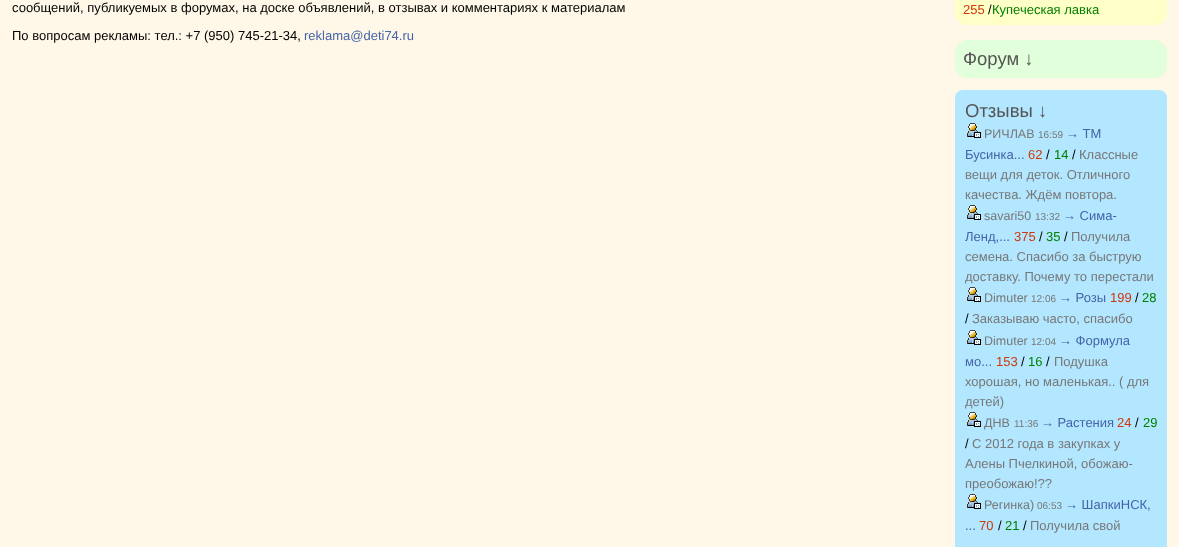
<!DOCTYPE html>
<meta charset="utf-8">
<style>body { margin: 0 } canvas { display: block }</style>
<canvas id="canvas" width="1179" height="547"></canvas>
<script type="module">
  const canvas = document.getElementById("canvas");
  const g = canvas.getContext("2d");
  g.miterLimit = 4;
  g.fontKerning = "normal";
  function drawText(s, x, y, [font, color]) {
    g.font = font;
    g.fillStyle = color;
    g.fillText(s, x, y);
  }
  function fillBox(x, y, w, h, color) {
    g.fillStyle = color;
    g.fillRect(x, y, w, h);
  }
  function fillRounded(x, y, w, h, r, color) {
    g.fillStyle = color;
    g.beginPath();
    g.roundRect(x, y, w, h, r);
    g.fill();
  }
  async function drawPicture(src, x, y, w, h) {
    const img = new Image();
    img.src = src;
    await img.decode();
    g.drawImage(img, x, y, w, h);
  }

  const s1 = ["13px Liberation Sans", "#000000"];
  const s2 = ["13px Liberation Sans", "#4464A8"];
  const s3 = ["13px Liberation Sans", "#CE370B"];
  const s4 = ["13px Liberation Sans", "#008000"];
  const s5 = ["18.5px Liberation Sans", "#555555"];
  const s6 = ["12.5px Liberation Sans", "#777777"];
  const s7 = ["10px Liberation Sans", "#777777"];
  const s8 = ["13px Liberation Sans", "#777777"];

  fillBox(0, 0, 1179, 547, "#FFF8E8");
  drawText("сообщений, публикуемых в форумах, на доске объявлений, в отзывах и комментариях к материалам", 12, 12, s1);
  drawText("По вопросам рекламы: тел.: +7 (950) 745-21-34,", 12, 40, s1);
  drawText("reklama@deti74.ru", 304, 40, s2);
  fillBox(955, 0, 212, 25, "#FFFFC8");
  drawText("255", 963, 14, s3);
  drawText("/", 988, 14, s1);
  drawText("Купеческая лавка", 992, 14, s4);
  await drawPicture("pic1.png", 955, 17, 8, 8);
  await drawPicture("pic2.png", 1159, 17, 8, 8);
  fillBox(955, 40, 212, 38, "#E2FFDB");
  await drawPicture("pic3.png", 955, 40, 8, 8);
  await drawPicture("pic4.png", 1159, 40, 8, 8);
  drawText("Форум ↓", 963, 65, s5);
  await drawPicture("pic5.png", 955, 70, 8, 8);
  await drawPicture("pic6.png", 1159, 70, 8, 8);
  fillRounded(955, 90, 212, 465, 8, "#B3E7FF");
  drawText("Отзывы ↓", 965, 117, s5);
  await drawPicture("pic7.png", 967, 123, 14, 15);
  drawText("РИЧЛАВ", 984, 138, s6);
  drawText("16:59", 1038, 138, s7);
  drawText("→ ТМ", 1066, 138, s2);
  drawText("Бусинка...", 965, 159, s2);
  drawText("62", 1028, 159, s3);
  drawText("/", 1046, 159, s1);
  drawText("14", 1054, 159, s4);
  drawText("/", 1072, 159, s1);
  drawText("Классные", 1079, 159, s8);
  drawText("вещи для деток. Отличного", 965, 179, s8);
  drawText("качества. Ждём повтора.", 965, 199, s8);
  await drawPicture("pic7.png", 967, 205, 14, 15);
  drawText("savari50", 984, 220, s6);
  drawText("13:32", 1035, 220, s7);
  drawText("→ Сима-", 1063, 220, s2);
  drawText("Ленд,...", 965, 241, s2);
  drawText("375", 1014, 241, s3);
  drawText("/", 1039, 241, s1);
  drawText("35", 1046, 241, s4);
  drawText("/", 1064, 241, s1);
  drawText("Получила", 1071, 241, s8);
  drawText("семена. Спасибо за быструю", 965, 261, s8);
  drawText("доставку. Почему то перестали", 965, 281, s8);
  await drawPicture("pic7.png", 967, 287, 14, 15);
  drawText("Dimuter", 984, 302, s6);
  drawText("12:06", 1031, 302, s7);
  drawText("→ Розы", 1059, 302, s2);
  drawText("199", 1110, 302, s3);
  drawText("/", 1135, 302, s1);
  drawText("28", 1142, 302, s4);
  drawText("/", 965, 323, s1);
  drawText("Заказываю часто, спасибо", 972, 323, s8);
  await drawPicture("pic7.png", 967, 330, 14, 15);
  drawText("Dimuter", 984, 345, s6);
  drawText("12:04", 1031, 345, s7);
  drawText("→ Формула", 1059, 345, s2);
  drawText("мо...", 965, 366, s2);
  drawText("153", 996, 366, s3);
  drawText("/", 1021, 366, s1);
  drawText("16", 1028, 366, s4);
  drawText("/", 1046, 366, s1);
  drawText("Подушка", 1054, 366, s8);
  drawText("хорошая, но маленькая.. ( для", 965, 386, s8);
  drawText("детей)", 965, 406, s8);
  await drawPicture("pic7.png", 967, 412, 14, 15);
  drawText("ДНВ", 984, 427, s6);
  drawText("11:36", 1014, 427, s7);
  drawText("→ Растения", 1041, 427, s2);
  drawText("24", 1117, 427, s3);
  drawText("/", 1135, 427, s1);
  drawText("29", 1143, 427, s4);
  drawText("/", 965, 448, s1);
  drawText("С 2012 года в закупках у", 972, 448, s8);
  drawText("Алены Пчелкиной, обожаю-", 965, 468, s8);
  drawText("преобожаю!??", 965, 488, s8);
  await drawPicture("pic7.png", 967, 494, 14, 15);
  drawText("Регинка)", 984, 509, s6);
  drawText("06:53", 1037, 509, s7);
  drawText("→ ШапкиНСК,", 1065, 509, s2);
  drawText("...", 965, 530, s2);
  drawText("70", 979, 530, s3);
  drawText("/", 998, 530, s1);
  drawText("21", 1005, 530, s4);
  drawText("/", 1023, 530, s1);
  drawText("Получила свой", 1030, 530, s8);
</script>
